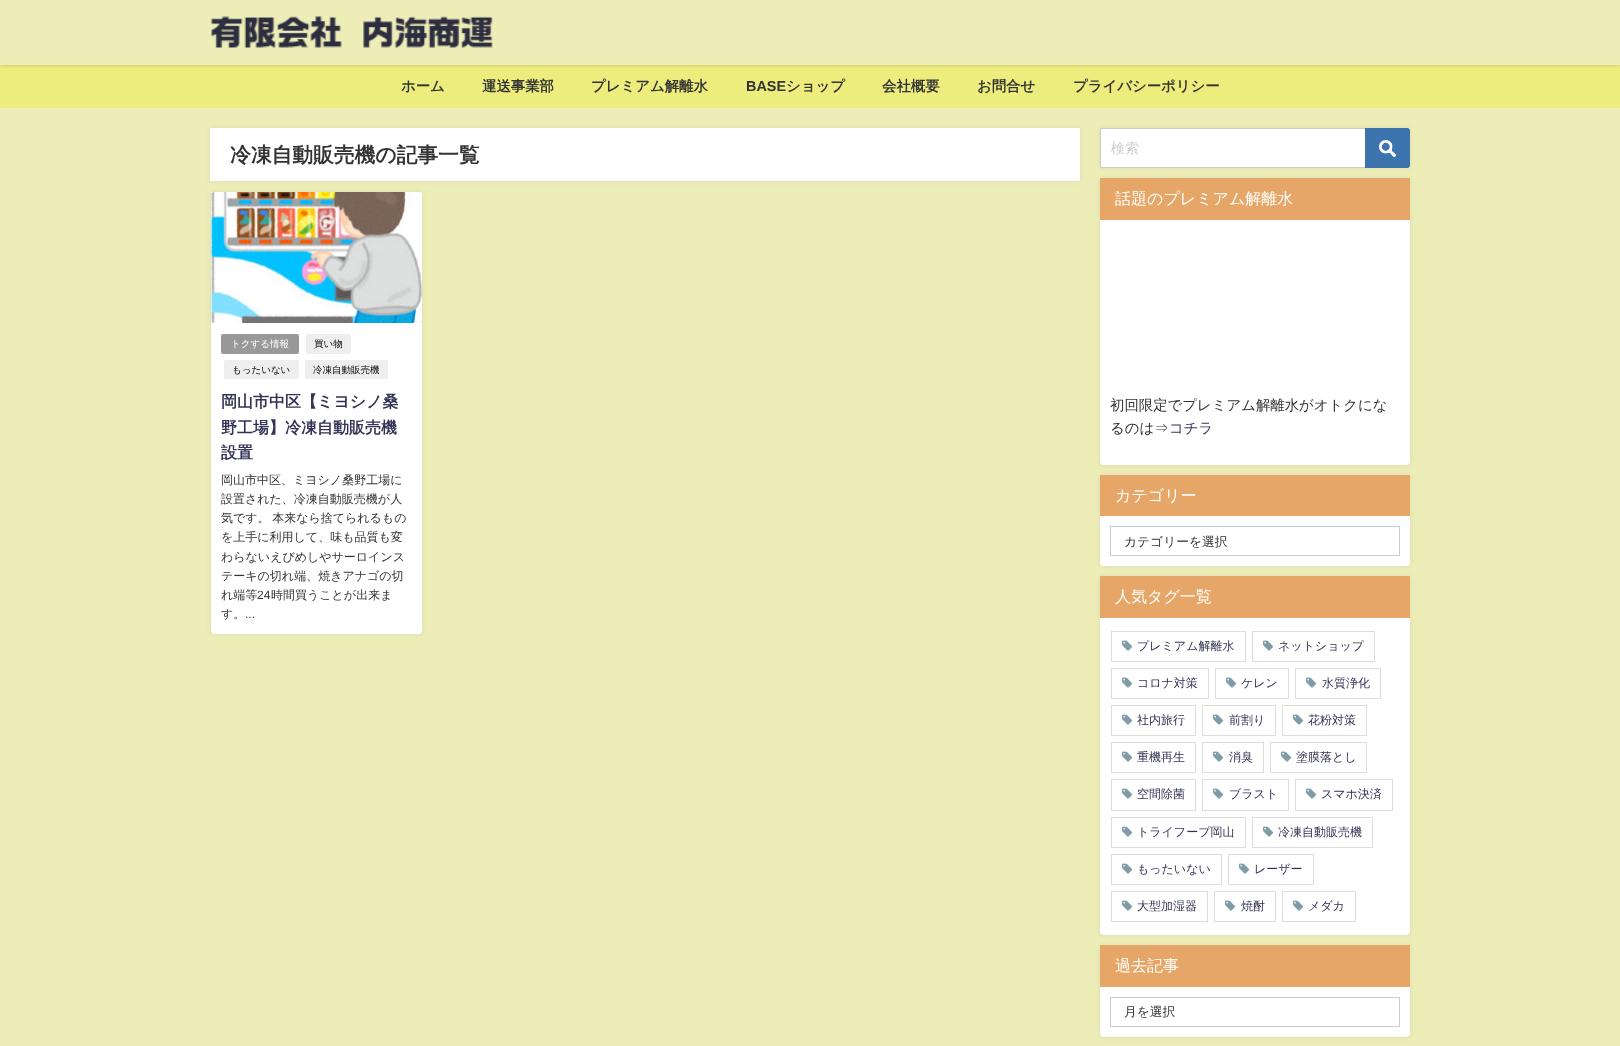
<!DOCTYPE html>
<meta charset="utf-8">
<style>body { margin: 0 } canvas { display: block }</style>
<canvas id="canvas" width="1620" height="1046"></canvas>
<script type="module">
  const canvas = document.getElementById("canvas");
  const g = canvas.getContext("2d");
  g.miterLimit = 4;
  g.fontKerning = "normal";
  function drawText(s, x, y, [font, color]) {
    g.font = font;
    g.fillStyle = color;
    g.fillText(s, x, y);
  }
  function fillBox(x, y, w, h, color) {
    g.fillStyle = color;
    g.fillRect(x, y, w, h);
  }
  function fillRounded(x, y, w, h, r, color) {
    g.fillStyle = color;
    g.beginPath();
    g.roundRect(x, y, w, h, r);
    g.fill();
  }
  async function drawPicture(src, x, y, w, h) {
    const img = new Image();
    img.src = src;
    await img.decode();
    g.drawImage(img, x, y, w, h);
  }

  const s1 = ["bold 14.4px WenQuanYi Zen Hei", "#333333"];
  const s2 = ["bold 14.4px Liberation Sans", "#333333"];
  const s3 = ["bold 20.75px WenQuanYi Zen Hei", "#333333"];
  const s4 = ["500 9.5px WenQuanYi Zen Hei", "#000000"];
  const s5 = ["500 9.5px WenQuanYi Zen Hei", "#FFFFFF"];
  const s6 = ["bold 16px WenQuanYi Zen Hei", "#333355"];
  const s7 = ["500 12px WenQuanYi Zen Hei", "#333333"];
  const s8 = ["12px Liberation Sans", "#333333"];
  const s9 = ["500 14px WenQuanYi Zen Hei", "#CCCCCC"];
  const s10 = ["500 16px WenQuanYi Zen Hei", "#FFFFFF"];
  const s11 = ["500 14.4px WenQuanYi Zen Hei", "#333333"];
  const s12 = ["500 14.4px WenQuanYi Zen Hei", "#333355"];
  const s13 = ["500 12.75px WenQuanYi Zen Hei", "#333333"];
  const s14 = ["500 12px WenQuanYi Zen Hei", "#333355"];

  fillBox(0, 0, 1620, 1046, "#EDEDB8");
  fillBox(0, 65, 1620, 43, "#EDED7D");
  g.save();
  g.beginPath();
  g.rect(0, 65, 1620, 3);
  g.clip();
  g.fillStyle = "rgba(0, 0, 0, 0.2)";
  g.filter = "blur(2px)";
  g.beginPath();
  g.rect(0, 0, 1620, 65);
  g.fill();
  g.filter = "none";
  g.restore();
  await drawPicture("pic1.png", 211, 16, 282, 32);
  drawText("ホーム", 401, 91, s1);
  drawText("運送事業部", 482, 91, s1);
  drawText("プレミアム解離水", 591, 91, s1);
  drawText("BASE", 746, 91, s2);
  drawText("ショップ", 786, 91, s1);
  drawText("会社概要", 882, 91, s1);
  drawText("お問合せ", 977, 91, s1);
  drawText("プライバシーポリシー", 1073, 91, s1);
  g.fillStyle = "rgba(150, 150, 150, 0.2)";
  g.filter = "blur(2.5px)";
  g.beginPath();
  g.rect(210, 128, 870, 53);
  g.fill();
  g.filter = "none";
  fillBox(210, 128, 870, 53, "#FFFFFF");
  drawText("冷凍自動販売機の記事一覧", 230, 162, s3);
  g.fillStyle = "rgba(150, 150, 150, 0.2)";
  g.filter = "blur(2.5px)";
  g.beginPath();
  g.roundRect(211, 192, 211, 442, 4);
  g.fill();
  g.filter = "none";
  fillRounded(211, 192, 211, 442, 4, "#FFFFFF");
  fillBox(211, 192, 211, 131, "#EEEEEE");
  await drawPicture("pic2.png", 211, 192, 211, 131);
  fillRounded(306, 334, 45, 20, 2, "#EEEEEE");
  drawText("買い物", 314, 347, s4);
  fillRounded(224, 360, 75, 19, 2, "#EEEEEE");
  drawText("もったいない", 232, 373, s4);
  fillRounded(305, 360, 83, 19, 2, "#EEEEEE");
  drawText("冷凍自動販売機", 313, 373, s4);
  fillRounded(221, 334, 78, 20, 2, "#999999");
  drawText("トクする情報", 231, 347, s5);
  drawText("岡山市中区【ミヨシノ桑", 221, 407, s6);
  drawText("野工場】冷凍自動販売機", 221, 433, s6);
  drawText("設置", 221, 458, s6);
  drawText("岡山市中区、ミヨシノ桑野工場に", 221, 484, s7);
  drawText("設置された、冷凍自動販売機が人", 221, 503, s7);
  g.wordSpacing = "-1px";
  drawText("気です。 本来なら捨てられるもの", 221, 522, s7);
  g.wordSpacing = "0px";
  drawText("を上手に利用して、味も品質も変", 221, 541, s7);
  drawText("わらないえびめしやサーロインス", 221, 561, s7);
  drawText("テーキの切れ端、焼きアナゴの切", 221, 580, s7);
  drawText("れ端等", 221, 599, s7);
  drawText("24", 257, 599, s8);
  drawText("時間買うことが出来ま", 271, 599, s7);
  drawText("す。", 221, 618, s7);
  drawText("...", 245, 618, s8);
  g.fillStyle = "rgba(150, 150, 150, 0.2)";
  g.filter = "blur(2.5px)";
  g.beginPath();
  g.roundRect(1100, 128, 310, 40, 4);
  g.fill();
  g.filter = "none";
  g.fillStyle = "#FFFFFF";
  g.beginPath();
  g.roundRect(1100.5, 128.5, 309, 39, 1.5);
  g.fill();
  g.strokeStyle = "#CCCCCC";
  g.stroke();
  drawText("検索", 1111, 153, s9);
  g.fillStyle = "#3C74AD";
  g.beginPath();
  g.roundRect(1365, 128, 45, 40, [0, 3, 3, 0]);
  g.fill();
  await drawPicture("pic3.png", 1379, 140, 17, 17);
  g.fillStyle = "rgba(150, 150, 150, 0.2)";
  g.filter = "blur(2.5px)";
  g.beginPath();
  g.roundRect(1100, 178, 310, 287, 4);
  g.fill();
  g.filter = "none";
  fillRounded(1100, 178, 310, 287, 4, "#FFFFFF");
  fillBox(1100, 178, 310, 42, "#E5A667");
  drawText("話題のプレミアム解離水", 1115, 204, s10);
  drawText("初回限定でプレミアム解離水がオトクにな", 1110, 410, s11);
  drawText("るのは⇒", 1110, 433, s11);
  drawText("コチラ", 1169, 433, s12);
  g.fillStyle = "rgba(150, 150, 150, 0.2)";
  g.filter = "blur(2.5px)";
  g.beginPath();
  g.roundRect(1100, 475, 310, 91, 4);
  g.fill();
  g.filter = "none";
  fillRounded(1100, 475, 310, 91, 4, "#FFFFFF");
  fillBox(1100, 475, 310, 41, "#E5A667");
  drawText("カテゴリー", 1115, 501, s10);
  g.strokeRect(1110.5, 526.5, 289, 29);
  drawText("カテゴリーを選択", 1124, 546, s13);
  g.fillStyle = "rgba(150, 150, 150, 0.2)";
  g.filter = "blur(2.5px)";
  g.beginPath();
  g.roundRect(1100, 576, 310, 359, 4);
  g.fill();
  g.filter = "none";
  fillRounded(1100, 576, 310, 359, 4, "#FFFFFF");
  fillBox(1100, 576, 310, 42, "#E5A667");
  drawText("人気タグ一覧", 1115, 602, s10);
  g.strokeStyle = "#DDDDDD";
  g.strokeRect(1111.5, 631.5, 134, 30);
  await drawPicture("pic4.png", 1122, 640, 11, 11);
  drawText("プレミアム解離水", 1137, 650, s14);
  g.strokeRect(1252.5, 631.5, 122, 30);
  await drawPicture("pic4.png", 1263, 640, 11, 11);
  drawText("ネットショップ", 1278, 650, s14);
  g.strokeRect(1111.5, 668.5, 97, 30);
  await drawPicture("pic4.png", 1122, 677, 11, 11);
  drawText("コロナ対策", 1137, 687, s14);
  g.strokeRect(1215.5, 668.5, 73, 30);
  await drawPicture("pic4.png", 1226, 677, 11, 11);
  drawText("ケレン", 1241, 687, s14);
  g.strokeRect(1295.5, 668.5, 85, 30);
  await drawPicture("pic4.png", 1306, 677, 11, 11);
  drawText("水質浄化", 1322, 687, s14);
  g.strokeRect(1111.5, 705.5, 84, 30);
  await drawPicture("pic4.png", 1122, 714, 11, 11);
  drawText("社内旅行", 1137, 724, s14);
  g.strokeRect(1202.5, 705.5, 73, 30);
  await drawPicture("pic4.png", 1213, 714, 11, 11);
  drawText("前割り", 1229, 724, s14);
  g.strokeRect(1282.5, 705.5, 84, 30);
  await drawPicture("pic4.png", 1293, 714, 11, 11);
  drawText("花粉対策", 1308, 724, s14);
  g.strokeRect(1111.5, 742.5, 84, 30);
  await drawPicture("pic4.png", 1122, 751, 11, 11);
  drawText("重機再生", 1137, 761, s14);
  g.strokeRect(1202.5, 742.5, 61, 30);
  await drawPicture("pic4.png", 1213, 751, 11, 11);
  drawText("消臭", 1229, 761, s14);
  g.strokeRect(1270.5, 742.5, 96, 30);
  await drawPicture("pic4.png", 1281, 751, 11, 11);
  drawText("塗膜落とし", 1296, 761, s14);
  g.strokeRect(1111.5, 779.5, 84, 31);
  await drawPicture("pic4.png", 1122, 788, 11, 11);
  drawText("空間除菌", 1137, 798, s14);
  g.strokeRect(1202.5, 779.5, 86, 31);
  await drawPicture("pic4.png", 1213, 788, 11, 11);
  drawText("ブラスト", 1229, 798, s14);
  g.strokeRect(1295.5, 779.5, 97, 31);
  await drawPicture("pic4.png", 1306, 788, 11, 11);
  drawText("スマホ決済", 1321, 798, s14);
  g.strokeRect(1111.5, 817.5, 134, 30);
  await drawPicture("pic4.png", 1122, 826, 11, 11);
  drawText("トライフープ岡山", 1137, 836, s14);
  g.strokeRect(1252.5, 817.5, 120, 30);
  await drawPicture("pic4.png", 1263, 826, 11, 11);
  drawText("冷凍自動販売機", 1278, 836, s14);
  g.strokeRect(1111.5, 854.5, 110, 30);
  await drawPicture("pic4.png", 1122, 863, 11, 11);
  drawText("もったいない", 1137, 873, s14);
  g.strokeRect(1228.5, 854.5, 85, 30);
  await drawPicture("pic4.png", 1239, 863, 11, 11);
  drawText("レーザー", 1254, 873, s14);
  g.strokeRect(1111.5, 891.5, 96, 30);
  await drawPicture("pic4.png", 1122, 900, 11, 11);
  drawText("大型加湿器", 1137, 910, s14);
  g.strokeRect(1214.5, 891.5, 61, 30);
  await drawPicture("pic4.png", 1225, 900, 11, 11);
  drawText("焼酎", 1241, 910, s14);
  g.strokeRect(1282.5, 891.5, 73, 30);
  await drawPicture("pic4.png", 1293, 900, 11, 11);
  drawText("メダカ", 1308, 910, s14);
  g.fillStyle = "rgba(150, 150, 150, 0.2)";
  g.filter = "blur(2.5px)";
  g.beginPath();
  g.roundRect(1100, 945, 310, 92, 4);
  g.fill();
  g.filter = "none";
  fillRounded(1100, 945, 310, 92, 4, "#FFFFFF");
  fillBox(1100, 945, 310, 42, "#E5A667");
  drawText("過去記事", 1115, 971, s10);
  g.strokeStyle = "#CCCCCC";
  g.strokeRect(1110.5, 997.5, 289, 29);
  drawText("月を選択", 1124, 1016, s13);
</script>
